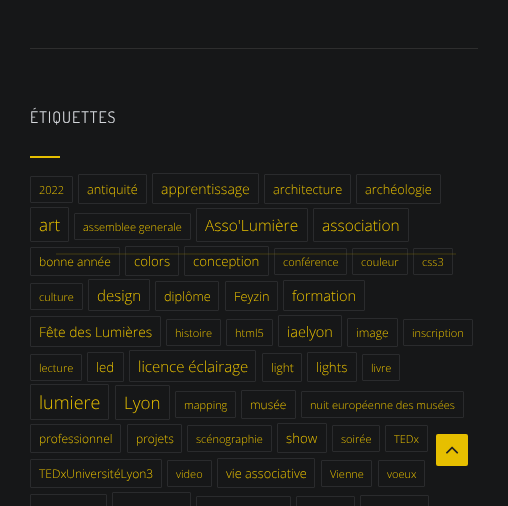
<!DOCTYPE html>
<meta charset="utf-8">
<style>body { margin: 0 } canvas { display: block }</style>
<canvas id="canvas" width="508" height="506"></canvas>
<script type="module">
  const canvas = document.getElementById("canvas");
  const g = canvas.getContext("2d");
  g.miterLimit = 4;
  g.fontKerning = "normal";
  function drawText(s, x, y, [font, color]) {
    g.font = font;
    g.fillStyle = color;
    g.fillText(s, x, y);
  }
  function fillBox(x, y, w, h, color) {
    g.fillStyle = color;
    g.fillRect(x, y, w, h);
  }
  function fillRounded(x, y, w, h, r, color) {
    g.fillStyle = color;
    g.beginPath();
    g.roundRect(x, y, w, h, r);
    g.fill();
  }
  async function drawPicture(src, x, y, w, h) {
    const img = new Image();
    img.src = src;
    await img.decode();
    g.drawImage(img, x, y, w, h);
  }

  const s1 = ["16px Dosis", "#D4D7DB"];
  const s2 = ["300 11px Open Sans", "#E6BF00"];
  const s3 = ["300 12.75px Open Sans", "#E6BF00"];
  const s4 = ["300 14px Open Sans", "#E6BF00"];
  const s5 = ["300 17px Open Sans", "#E6BF00"];
  const s6 = ["300 15.5px Open Sans", "#E6BF00"];
  const s7 = ["300 12px Open Sans", "#E6BF00"];
  const s8 = ["300 13.25px Open Sans", "#E6BF00"];
  const s9 = ["300 15px Open Sans", "#E6BF00"];
  const s10 = ["300 14.5px Open Sans", "#E6BF00"];
  const s11 = ["300 13.75px Open Sans", "#E6BF00"];
  const s12 = ["300 18px Open Sans", "#E6BF00"];

  fillBox(0, 0, 508, 506, "#161718");
  fillBox(30, 48, 448, 1, "#2E2E2E");
  g.letterSpacing = "1px";
  drawText("ÉTIQUETTES", 30, 123, s1);
  fillBox(30, 156, 30, 2, "#E6BF00");
  g.beginPath();
  g.roundRect(30.5, 176.5, 42, 26, 0.5);
  g.strokeStyle = "#2A2B2D";
  g.stroke();
  g.letterSpacing = "0px";
  drawText("2022", 39, 194, s2);
  g.beginPath();
  g.roundRect(78.5, 174.5, 68, 29, 0.5);
  g.stroke();
  drawText("antiquité", 87, 194, s3);
  g.beginPath();
  g.roundRect(152.5, 173.5, 106, 30, 0.5);
  g.stroke();
  drawText("apprentissage", 161, 194, s4);
  g.beginPath();
  g.roundRect(264.5, 174.5, 86, 29, 0.5);
  g.stroke();
  drawText("architecture", 273, 194, s3);
  g.beginPath();
  g.roundRect(356.5, 174.5, 84, 29, 0.5);
  g.stroke();
  drawText("archéologie", 365, 194, s3);
  g.beginPath();
  g.roundRect(30.5, 207.5, 38, 34, 0.5);
  g.stroke();
  drawText("art", 39, 231, s5);
  g.beginPath();
  g.roundRect(74.5, 213.5, 116, 26, 0.5);
  g.stroke();
  drawText("assemblee generale", 83, 231, s2);
  g.beginPath();
  g.roundRect(196.5, 208.5, 111, 33, 0.5);
  g.stroke();
  drawText("Asso'Lumière", 205, 231, s6);
  g.beginPath();
  g.roundRect(313.5, 208.5, 95, 33, 0.5);
  g.stroke();
  drawText("association", 322, 231, s6);
  g.beginPath();
  g.roundRect(30.5, 247.5, 89, 28, 0.5);
  g.stroke();
  drawText("bonne année", 39, 266, s7);
  g.beginPath();
  g.roundRect(125.5, 246.5, 53, 29, 0.5);
  g.stroke();
  drawText("colors", 134, 266, s8);
  g.beginPath();
  g.roundRect(184.5, 246.5, 84, 29, 0.5);
  g.stroke();
  drawText("conception", 193, 266, s8);
  g.beginPath();
  g.roundRect(274.5, 248.5, 72, 26, 0.5);
  g.stroke();
  drawText("conférence", 283, 266, s2);
  g.beginPath();
  g.roundRect(352.5, 248.5, 55, 26, 0.5);
  g.stroke();
  drawText("couleur", 361, 266, s2);
  g.beginPath();
  g.roundRect(413.5, 248.5, 39, 26, 0.5);
  g.stroke();
  drawText("css3", 422, 266, s2);
  g.beginPath();
  g.roundRect(30.5, 283.5, 52, 26, 0.5);
  g.stroke();
  drawText("culture", 39, 301, s2);
  g.beginPath();
  g.roundRect(88.5, 279.5, 61, 31, 0.5);
  g.stroke();
  drawText("design", 97, 301, s9);
  g.beginPath();
  g.roundRect(155.5, 281.5, 63, 29, 0.5);
  g.stroke();
  drawText("diplôme", 164, 301, s3);
  g.beginPath();
  g.roundRect(225.5, 281.5, 52, 29, 0.5);
  g.stroke();
  drawText("Feyzin", 234, 301, s3);
  g.beginPath();
  g.roundRect(283.5, 280.5, 81, 30, 0.5);
  g.stroke();
  drawText("formation", 292, 301, s10);
  g.beginPath();
  g.roundRect(30.5, 316.5, 130, 30, 0.5);
  g.stroke();
  drawText("Fête des Lumières", 39, 337, s11);
  g.beginPath();
  g.roundRect(166.5, 319.5, 54, 26, 0.5);
  g.stroke();
  drawText("histoire", 175, 337, s2);
  g.beginPath();
  g.roundRect(226.5, 319.5, 46, 26, 0.5);
  g.stroke();
  drawText("html5", 235, 337, s2);
  g.beginPath();
  g.roundRect(278.5, 315.5, 63, 31, 0.5);
  g.stroke();
  drawText("iaelyon", 287, 337, s10);
  g.beginPath();
  g.roundRect(347.5, 318.5, 50, 28, 0.5);
  g.stroke();
  drawText("image", 356, 337, s7);
  g.beginPath();
  g.roundRect(403.5, 319.5, 69, 26, 0.5);
  g.stroke();
  drawText("inscription", 412, 337, s2);
  g.beginPath();
  g.roundRect(30.5, 354.5, 51, 26, 0.5);
  g.stroke();
  drawText("lecture", 39, 372, s2);
  g.beginPath();
  g.roundRect(87.5, 352.5, 36, 29, 0.5);
  g.stroke();
  drawText("led", 96, 372, s8);
  g.beginPath();
  g.roundRect(129.5, 350.5, 126, 31, 0.5);
  g.stroke();
  drawText("licence éclairage", 138, 372, s9);
  g.beginPath();
  g.roundRect(262.5, 353.5, 39, 28, 0.5);
  g.stroke();
  drawText("light", 271, 372, s7);
  g.beginPath();
  g.roundRect(307.5, 352.5, 49, 29, 0.5);
  g.stroke();
  drawText("lights", 316, 372, s8);
  g.beginPath();
  g.roundRect(362.5, 354.5, 37, 26, 0.5);
  g.stroke();
  drawText("livre", 371, 372, s2);
  g.beginPath();
  g.roundRect(30.5, 384.5, 78, 35, 0.5);
  g.stroke();
  drawText("lumiere", 39, 409, s12);
  g.beginPath();
  g.roundRect(115.5, 385.5, 54, 34, 0.5);
  g.stroke();
  drawText("Lyon", 124, 409, s5);
  g.beginPath();
  g.roundRect(175.5, 391.5, 60, 26, 0.5);
  g.stroke();
  drawText("mapping", 184, 409, s2);
  g.beginPath();
  g.roundRect(241.5, 390.5, 54, 28, 0.5);
  g.stroke();
  drawText("musée", 250, 409, s7);
  g.beginPath();
  g.roundRect(301.5, 391.5, 162, 26, 0.5);
  g.stroke();
  drawText("nuit européenne des musées", 310, 409, s2);
  g.beginPath();
  g.roundRect(30.5, 424.5, 90, 28, 0.5);
  g.stroke();
  drawText("professionnel", 39, 443, s7);
  g.beginPath();
  g.roundRect(127.5, 424.5, 54, 28, 0.5);
  g.stroke();
  drawText("projets", 136, 443, s7);
  g.beginPath();
  g.roundRect(187.5, 425.5, 84, 26, 0.5);
  g.stroke();
  drawText("scénographie", 196, 443, s2);
  g.beginPath();
  g.roundRect(277.5, 423.5, 49, 29, 0.5);
  g.stroke();
  drawText("show", 286, 443, s8);
  g.beginPath();
  g.roundRect(332.5, 425.5, 47, 26, 0.5);
  g.stroke();
  drawText("soirée", 341, 443, s2);
  g.beginPath();
  g.roundRect(385.5, 425.5, 42, 26, 0.5);
  g.stroke();
  drawText("TEDx", 394, 443, s2);
  g.beginPath();
  g.roundRect(30.5, 459.5, 131, 28, 0.5);
  g.stroke();
  drawText("TEDxUniversitéLyon3", 39, 478, s7);
  g.beginPath();
  g.roundRect(167.5, 460.5, 44, 26, 0.5);
  g.stroke();
  drawText("video", 176, 478, s2);
  g.beginPath();
  g.roundRect(217.5, 458.5, 97, 29, 0.5);
  g.stroke();
  drawText("vie associative", 226, 478, s3);
  g.beginPath();
  g.roundRect(321.5, 460.5, 50, 26, 0.5);
  g.stroke();
  drawText("Vienne", 330, 478, s2);
  g.beginPath();
  g.roundRect(378.5, 460.5, 46, 26, 0.5);
  g.stroke();
  drawText("voeux", 387, 478, s2);
  g.beginPath();
  g.roundRect(30.5, 494.5, 76, 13, 0.5);
  g.stroke();
  g.beginPath();
  g.roundRect(112.5, 492.5, 78, 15, 0.5);
  g.stroke();
  g.beginPath();
  g.roundRect(196.5, 496.5, 94, 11, 0.5);
  g.stroke();
  g.beginPath();
  g.roundRect(296.5, 496.5, 58, 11, 0.5);
  g.stroke();
  g.beginPath();
  g.roundRect(360.5, 495.5, 68, 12, 0.5);
  g.stroke();
  fillRounded(436, 434, 32, 32, 2, "#E6BF00");
  await drawPicture("pic1.png", 446, 446, 13, 8);
  fillBox(119, 253, 337, 2, "rgba(17, 17, 17, 0.1)");
  fillBox(56, 253, 400, 2, "rgba(255, 212, 0, 0.1)");
</script>
